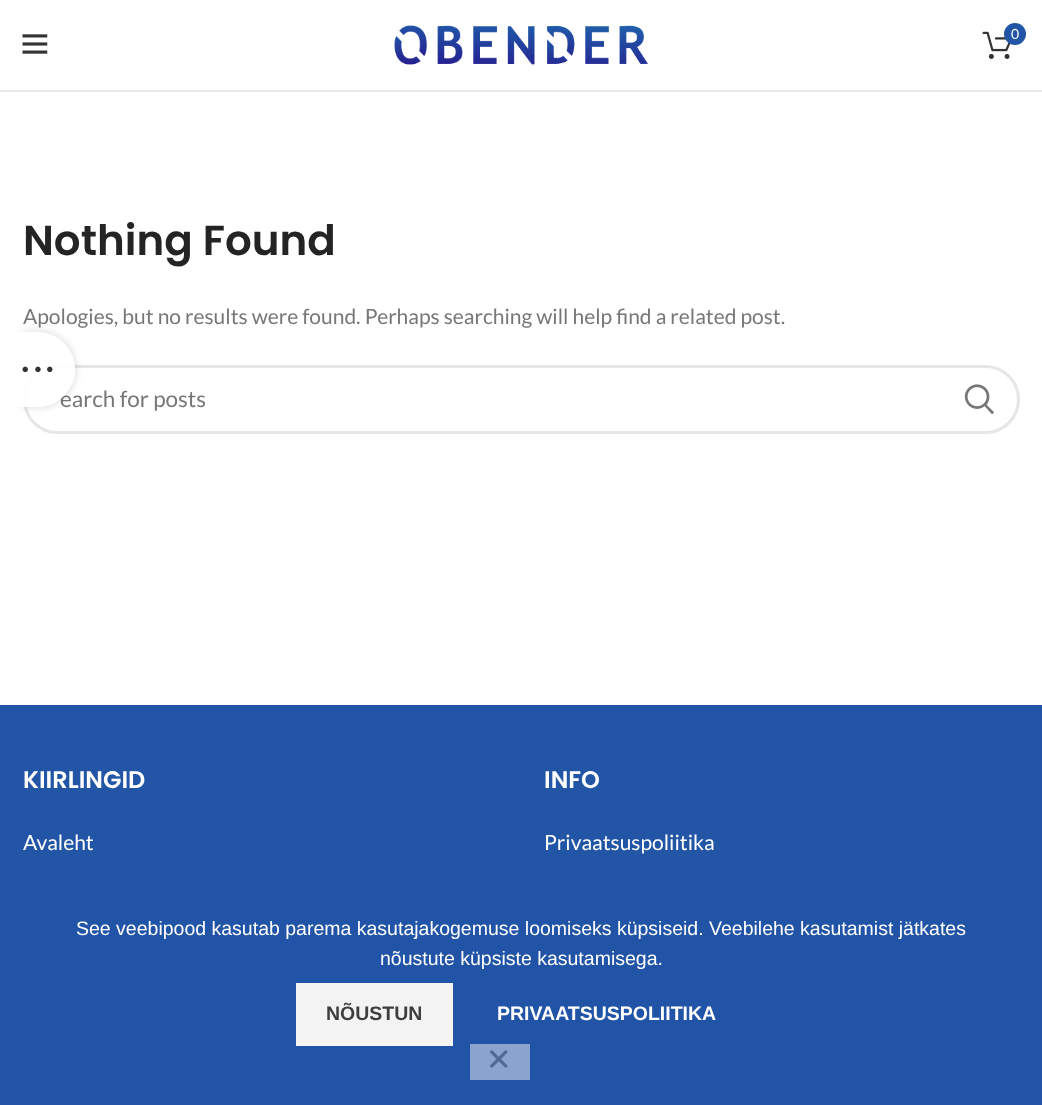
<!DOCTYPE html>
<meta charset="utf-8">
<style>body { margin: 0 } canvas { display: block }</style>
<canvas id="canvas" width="1042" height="1105"></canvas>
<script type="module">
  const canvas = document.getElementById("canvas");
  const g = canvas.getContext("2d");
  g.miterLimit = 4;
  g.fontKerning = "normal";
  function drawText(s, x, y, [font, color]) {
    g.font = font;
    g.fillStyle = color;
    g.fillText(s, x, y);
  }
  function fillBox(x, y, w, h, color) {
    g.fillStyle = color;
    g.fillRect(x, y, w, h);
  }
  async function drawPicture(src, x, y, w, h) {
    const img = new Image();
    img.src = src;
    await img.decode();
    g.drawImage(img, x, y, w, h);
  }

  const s1 = ["14px Lato", "#FFFFFF"];
  const s2 = ["600 42px Poppins", "#242424"];
  const s3 = ["21px Lato", "#777777"];
  const s4 = ["22.5px Lato", "#777777"];
  const s5 = ["600 24px Poppins", "#FFFFFF"];
  const s6 = ["21px Lato", "#FFFFFF"];
  const s7 = ["19.5px Liberation Sans", "#FFFFFF"];
  const s8 = ["bold 19.5px Liberation Sans", "#3E3E3E"];
  const s9 = ["bold 19.5px Liberation Sans", "#FFFFFF"];

  fillBox(0, 0, 1042, 1105, "#FFFFFF");
  fillBox(0, 90, 1042, 2, "#E8E8E8");
  await drawPicture("pic1.png", 22, 34, 26, 20);
  await drawPicture("pic2.png", 394, 25, 254, 40);
  await drawPicture("pic3.png", 982, 31, 29, 28);
  g.fillStyle = "#2255A5";
  g.beginPath();
  g.arc(1015, 34, 11, 0, Math.PI * 2);
  g.fill();
  drawText("0", 1011, 39, s1);
  drawText("Nothing Found", 23, 255, s2);
  drawText("Apologies, but no results were found. Perhaps searching will help find a related post.", 23, 324, s3);
  g.beginPath();
  g.roundRect(24.5, 366.5, 994, 66, 33);
  g.strokeStyle = "#E6E6E6";
  g.lineWidth = 3;
  g.stroke();
  drawText("earch for posts", 60, 407, s4);
  await drawPicture("pic4.png", 964, 384, 30, 31);
  fillBox(0, 705, 1042, 186, "#2255A5");
  drawText("KIIRLINGID", 23, 788, s5);
  drawText("Avaleht", 23, 850, s6);
  drawText("INFO", 544, 788, s5);
  drawText("Privaatsuspoliitika", 544, 850, s6);
  g.save();
  g.beginPath();
  g.moveTo(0, 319);
  g.lineTo(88, 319);
  g.lineTo(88, 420);
  g.lineTo(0, 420);
  g.closePath();
  g.moveTo(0, 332);
  g.lineTo(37.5, 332);
  g.bezierCurveTo(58, 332, 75, 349, 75, 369.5);
  g.bezierCurveTo(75, 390, 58, 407, 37.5, 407);
  g.lineTo(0, 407);
  g.closePath();
  g.clip("evenodd");
  g.fillStyle = "rgba(0, 0, 0, 0.17)";
  g.filter = "blur(4px)";
  g.beginPath();
  g.roundRect(0, 332, 75, 75, 37.5);
  g.fill();
  g.filter = "none";
  g.restore();
  g.fillStyle = "rgba(255, 255, 255, 0.9)";
  g.beginPath();
  g.roundRect(0, 332, 75, 75, [0, 37.5, 37.5, 0]);
  g.fill();
  await drawPicture("pic5.png", 22, 366, 31, 7);
  fillBox(0, 891, 1042, 214, "#2154A6");
  drawText("See veebipood kasutab parema kasutajakogemuse loomiseks küpsiseid. Veebilehe kasutamist jätkates", 76, 935, s7);
  drawText("nõustute küpsiste kasutamisega.", 380, 965, s7);
  fillBox(296, 983, 157, 63, "#F3F3F3");
  drawText("NÕUSTUN", 326, 1020, s8);
  drawText("PRIVAATSUSPOLIITIKA", 497, 1020, s9);
  fillBox(470, 1044, 60, 36, "#8AA4CD");
  g.fillStyle = "#516A93";
  g.beginPath();
  g.moveTo(505.5, 1050);
  g.lineTo(508, 1052);
  g.lineTo(492, 1068);
  g.lineTo(489.5, 1066);
  g.closePath();
  g.fill();
  g.beginPath();
  g.moveTo(489.5, 1052);
  g.lineTo(492, 1050);
  g.lineTo(508, 1066);
  g.lineTo(505.5, 1068);
  g.closePath();
  g.fill();
</script>
